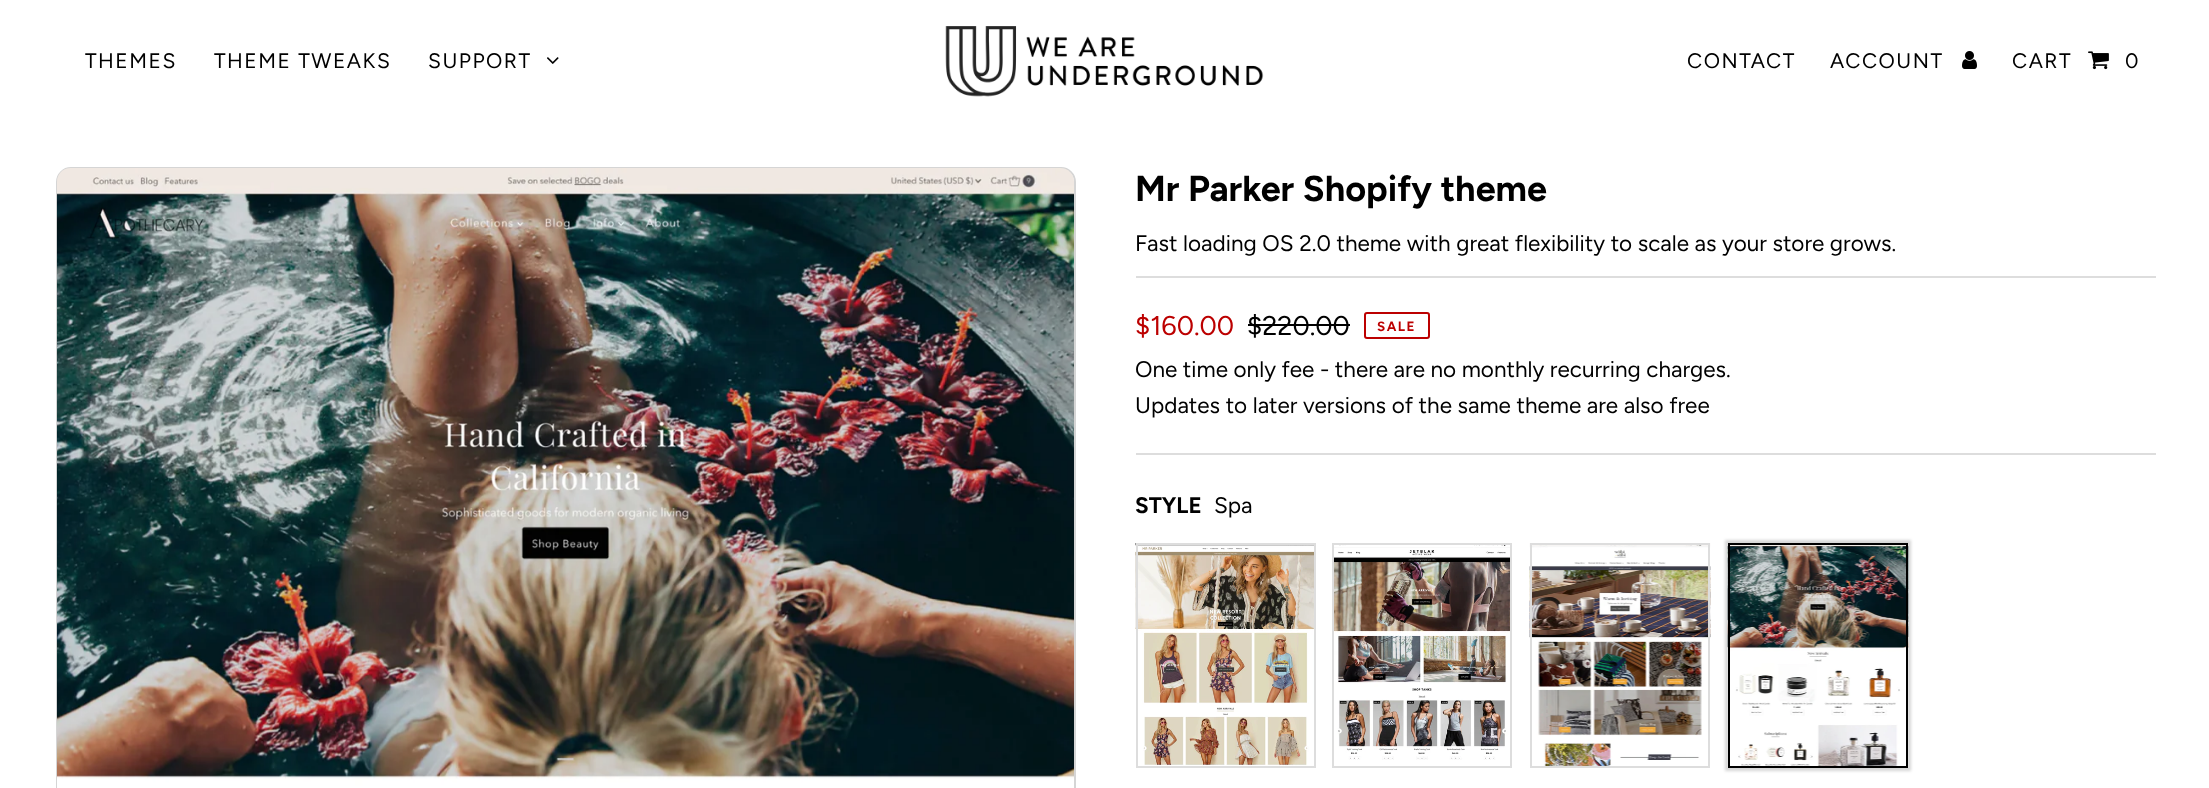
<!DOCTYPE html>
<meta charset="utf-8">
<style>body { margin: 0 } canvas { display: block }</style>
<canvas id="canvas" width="2209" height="788"></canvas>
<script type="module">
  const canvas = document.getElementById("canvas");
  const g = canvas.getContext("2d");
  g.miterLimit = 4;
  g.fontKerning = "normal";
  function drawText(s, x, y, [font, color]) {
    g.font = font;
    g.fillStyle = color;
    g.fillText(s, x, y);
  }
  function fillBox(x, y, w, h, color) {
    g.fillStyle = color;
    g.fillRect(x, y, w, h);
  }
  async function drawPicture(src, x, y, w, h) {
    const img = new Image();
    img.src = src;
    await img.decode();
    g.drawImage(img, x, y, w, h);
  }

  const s1 = ["21px Figtree", "#000000"];
  const s2 = ["bold 36px Figtree", "#000000"];
  const s3 = ["22.5px Figtree", "#000000"];
  const s4 = ["27px Figtree", "#BC0000"];
  const s5 = ["27px Figtree", "#000000"];
  const s6 = ["bold 13.5px Figtree", "#BC0000"];
  const s7 = ["bold 22.5px Figtree", "#000000"];

  fillBox(0, 0, 2209, 788, "#FFFFFF");
  g.letterSpacing = "1.5px";
  drawText("THEMES", 85, 68, s1);
  drawText("THEME TWEAKS", 214, 68, s1);
  drawText("SUPPORT", 428, 68, s1);
  await drawPicture("pic1.png", 547, 57, 12, 7);
  await drawPicture("pic2.png", 945, 26, 319, 71);
  drawText("CONTACT", 1687, 68, s1);
  drawText("ACCOUNT", 1830, 68, s1);
  await drawPicture("pic3.png", 1962, 51, 15, 18);
  drawText("CART", 2012, 68, s1);
  await drawPicture("pic4.png", 2088, 51, 21, 19);
  drawText("0", 2125, 68, s1);
  g.beginPath();
  g.roundRect(57, 168, 1018, 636, 14);
  g.strokeStyle = "#D5D5D5";
  g.lineWidth = 2;
  g.stroke();
  await drawPicture("pic5.png", 57, 168, 1017, 620);
  g.letterSpacing = "0px";
  drawText("Mr Parker Shopify theme", 1135, 201, s2);
  drawText("Fast loading OS 2.0 theme with great flexibility to scale as your store grows.", 1135, 251, s3);
  fillBox(1136, 276, 1020, 2, "#DDDDDD");
  fillBox(1136, 453, 1020, 2, "#DDDDDD");
  drawText("$160.00", 1135, 335, s4);
  drawText("$220.00", 1247, 335, s5);
  fillBox(1248, 324, 102, 2, "#000000");
  g.beginPath();
  g.roundRect(1365, 313, 64, 25, 2);
  g.strokeStyle = "#BC0000";
  g.stroke();
  g.letterSpacing = "1.5px";
  drawText("SALE", 1377, 331, s6);
  g.letterSpacing = "0px";
  drawText("One time only fee - there are no monthly recurring charges.", 1135, 377, s3);
  drawText("Updates to later versions of the same theme are also free", 1135, 413, s3);
  drawText("STYLE", 1135, 513, s7);
  drawText("Spa", 1214, 513, s3);
  await drawPicture("pic6.png", 1135, 543, 179, 225);
  g.strokeStyle = "#DDDDDD";
  g.strokeRect(1137, 544, 178, 223);
  await drawPicture("pic7.png", 1334, 545, 176, 215);
  g.strokeRect(1333, 544, 178, 223);
  await drawPicture("pic8.png", 1529, 543, 182, 225);
  g.strokeRect(1531, 544, 178, 223);
  g.fillStyle = "#D6D6D6";
  g.filter = "blur(1.5px)";
  g.beginPath();
  g.rect(1725, 540, 186, 231);
  g.fill();
  g.filter = "none";
  await drawPicture("pic9.png", 1727, 543, 182, 225);
  g.strokeStyle = "#000000";
  g.strokeRect(1729, 544, 178, 223);
</script>
